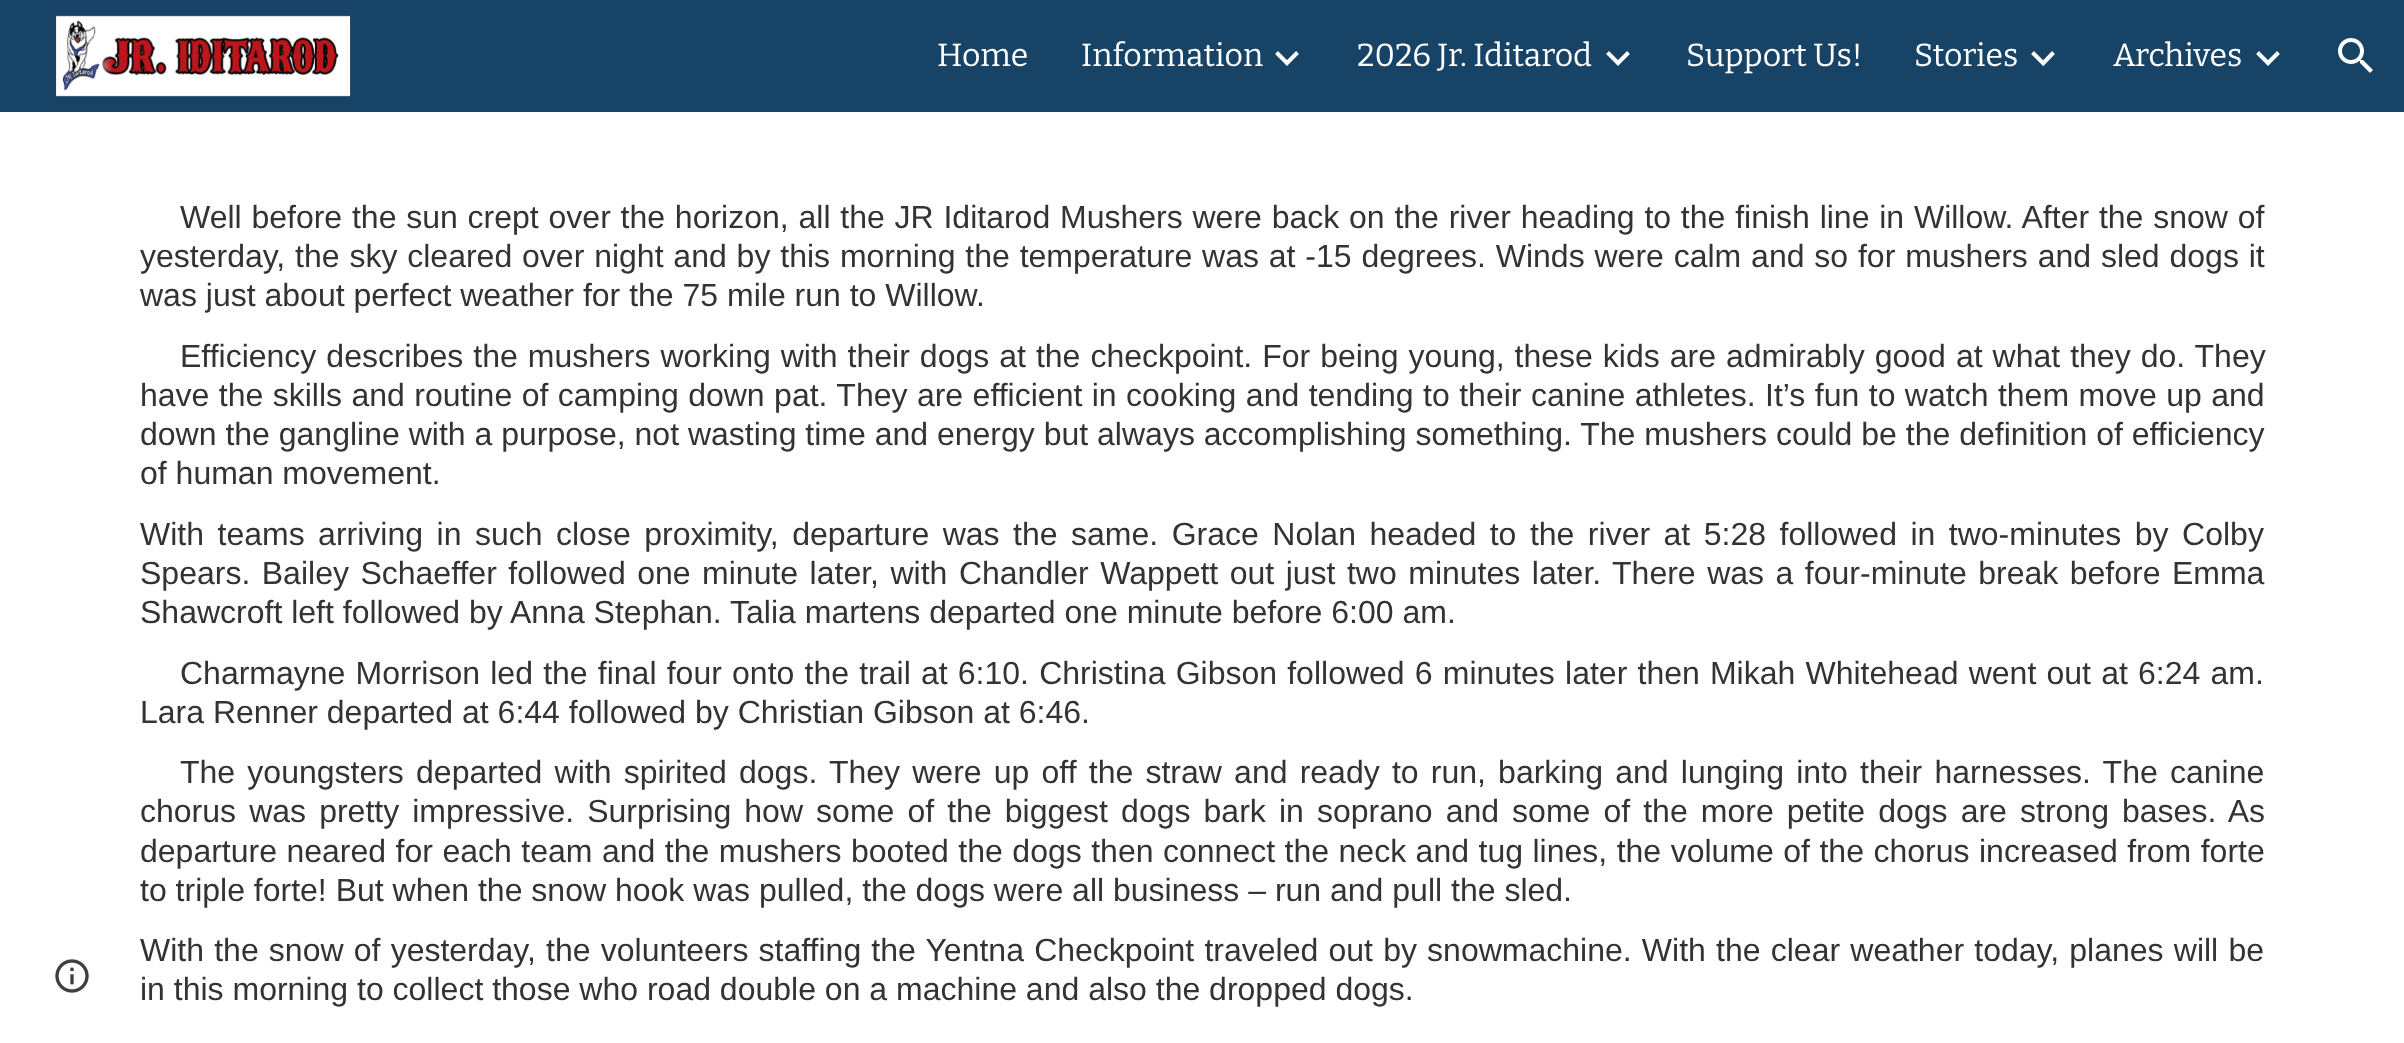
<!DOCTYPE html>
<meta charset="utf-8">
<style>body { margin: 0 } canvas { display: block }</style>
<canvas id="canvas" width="2404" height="1043"></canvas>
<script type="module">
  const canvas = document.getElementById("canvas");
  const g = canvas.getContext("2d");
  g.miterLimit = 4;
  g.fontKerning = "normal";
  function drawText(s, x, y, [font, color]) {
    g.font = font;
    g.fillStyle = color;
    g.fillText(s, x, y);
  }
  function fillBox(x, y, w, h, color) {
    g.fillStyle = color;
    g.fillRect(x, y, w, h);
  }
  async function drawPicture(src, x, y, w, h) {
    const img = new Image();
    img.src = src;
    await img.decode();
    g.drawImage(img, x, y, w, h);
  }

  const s1 = ["32px Bitter", "#FFFFFF"];
  const s2 = ["32px Liberation Sans", "#333333"];

  fillBox(0, 0, 2404, 1043, "#FFFFFF");
  fillBox(0, 0, 2404, 112, "#174466");
  await drawPicture("pic1.png", 56, 15, 295, 82);
  drawText("Home", 937, 66, s1);
  drawText("Information", 1081, 66, s1);
  g.beginPath();
  g.moveTo(1276.5, 52.5);
  g.lineTo(1288.5, 64.5);
  g.moveTo(1285.5, 64.5);
  g.lineTo(1297.5, 52.5);
  g.strokeStyle = "#FFFFFF";
  g.lineWidth = 4;
  g.stroke();
  drawText("2026 Jr. Iditarod", 1357, 66, s1);
  g.beginPath();
  g.moveTo(1607.5, 52.5);
  g.lineTo(1619.5, 64.5);
  g.moveTo(1616.5, 64.5);
  g.lineTo(1628.5, 52.5);
  g.stroke();
  drawText("Support Us!", 1686, 66, s1);
  drawText("Stories", 1914, 66, s1);
  g.beginPath();
  g.moveTo(2032.5, 52.5);
  g.lineTo(2044.5, 64.5);
  g.moveTo(2042, 64.5);
  g.lineTo(2053.5, 52.5);
  g.stroke();
  drawText("Archives", 2113, 66, s1);
  g.beginPath();
  g.moveTo(2257.5, 52.5);
  g.lineTo(2269.5, 64.5);
  g.moveTo(2266.5, 64.5);
  g.lineTo(2278.5, 52.5);
  g.stroke();
  await drawPicture("pic2.png", 2338, 38, 35, 35);
  await drawPicture("pic3.png", 55, 959, 34, 34);
  g.wordSpacing = "0.9px";
  drawText("Well before the sun crept over the horizon, all the JR Iditarod Mushers were back on the river heading to the finish line in Willow. After the snow of", 180, 228, s2);
  g.wordSpacing = "0.95px";
  drawText("yesterday, the sky cleared over night and by this morning the temperature was at -15 degrees. Winds were calm and so for mushers and sled dogs it", 140, 267, s2);
  g.wordSpacing = "0px";
  drawText("was just about perfect weather for the 75 mile run to Willow.", 140, 306, s2);
  g.wordSpacing = "1.1px";
  drawText("Efficiency describes the mushers working with their dogs at the checkpoint. For being young, these kids are admirably good at what they do. They", 180, 367, s2);
  g.wordSpacing = "0.55px";
  drawText("have the skills and routine of camping down pat. They are efficient in cooking and tending to their canine athletes. It’s fun to watch them move up and", 140, 406, s2);
  g.wordSpacing = "0px";
  drawText("down the gangline with a purpose, not wasting time and energy but always accomplishing something. The mushers could be the definition of efficiency", 140, 445, s2);
  drawText("of human movement.", 140, 484, s2);
  g.wordSpacing = "4.6px";
  drawText("With teams arriving in such close proximity, departure was the same. Grace Nolan headed to the river at 5:28 followed in two-minutes by Colby", 140, 545, s2);
  g.wordSpacing = "2.6px";
  drawText("Spears. Bailey Schaeffer followed one minute later, with Chandler Wappett out just two minutes later. There was a four-minute break before Emma", 140, 584, s2);
  g.wordSpacing = "0px";
  drawText("Shawcroft left followed by Anna Stephan. Talia martens departed one minute before 6:00 am.", 140, 623, s2);
  g.wordSpacing = "1.3px";
  drawText("Charmayne Morrison led the final four onto the trail at 6:10. Christina Gibson followed 6 minutes later then Mikah Whitehead went out at 6:24 am.", 180, 684, s2);
  g.wordSpacing = "0px";
  drawText("Lara Renner departed at 6:44 followed by Christian Gibson at 6:46.", 140, 723, s2);
  g.wordSpacing = "3.3px";
  drawText("The youngsters departed with spirited dogs. They were up off the straw and ready to run, barking and lunging into their harnesses. The canine", 180, 783, s2);
  g.wordSpacing = "4.2px";
  drawText("chorus was pretty impressive. Surprising how some of the biggest dogs bark in soprano and some of the more petite dogs are strong bases. As", 140, 822, s2);
  g.wordSpacing = "0.6px";
  drawText("departure neared for each team and the mushers booted the dogs then connect the neck and tug lines, the volume of the chorus increased from forte", 140, 862, s2);
  g.wordSpacing = "0px";
  drawText("to triple forte! But when the snow hook was pulled, the dogs were all business – run and pull the sled.", 140, 901, s2);
  g.wordSpacing = "1.3px";
  drawText("With the snow of yesterday, the volunteers staffing the Yentna Checkpoint traveled out by snowmachine. With the clear weather today, planes will be", 140, 961, s2);
  g.wordSpacing = "0px";
  drawText("in this morning to collect those who road double on a machine and also the dropped dogs.", 140, 1000, s2);
</script>
